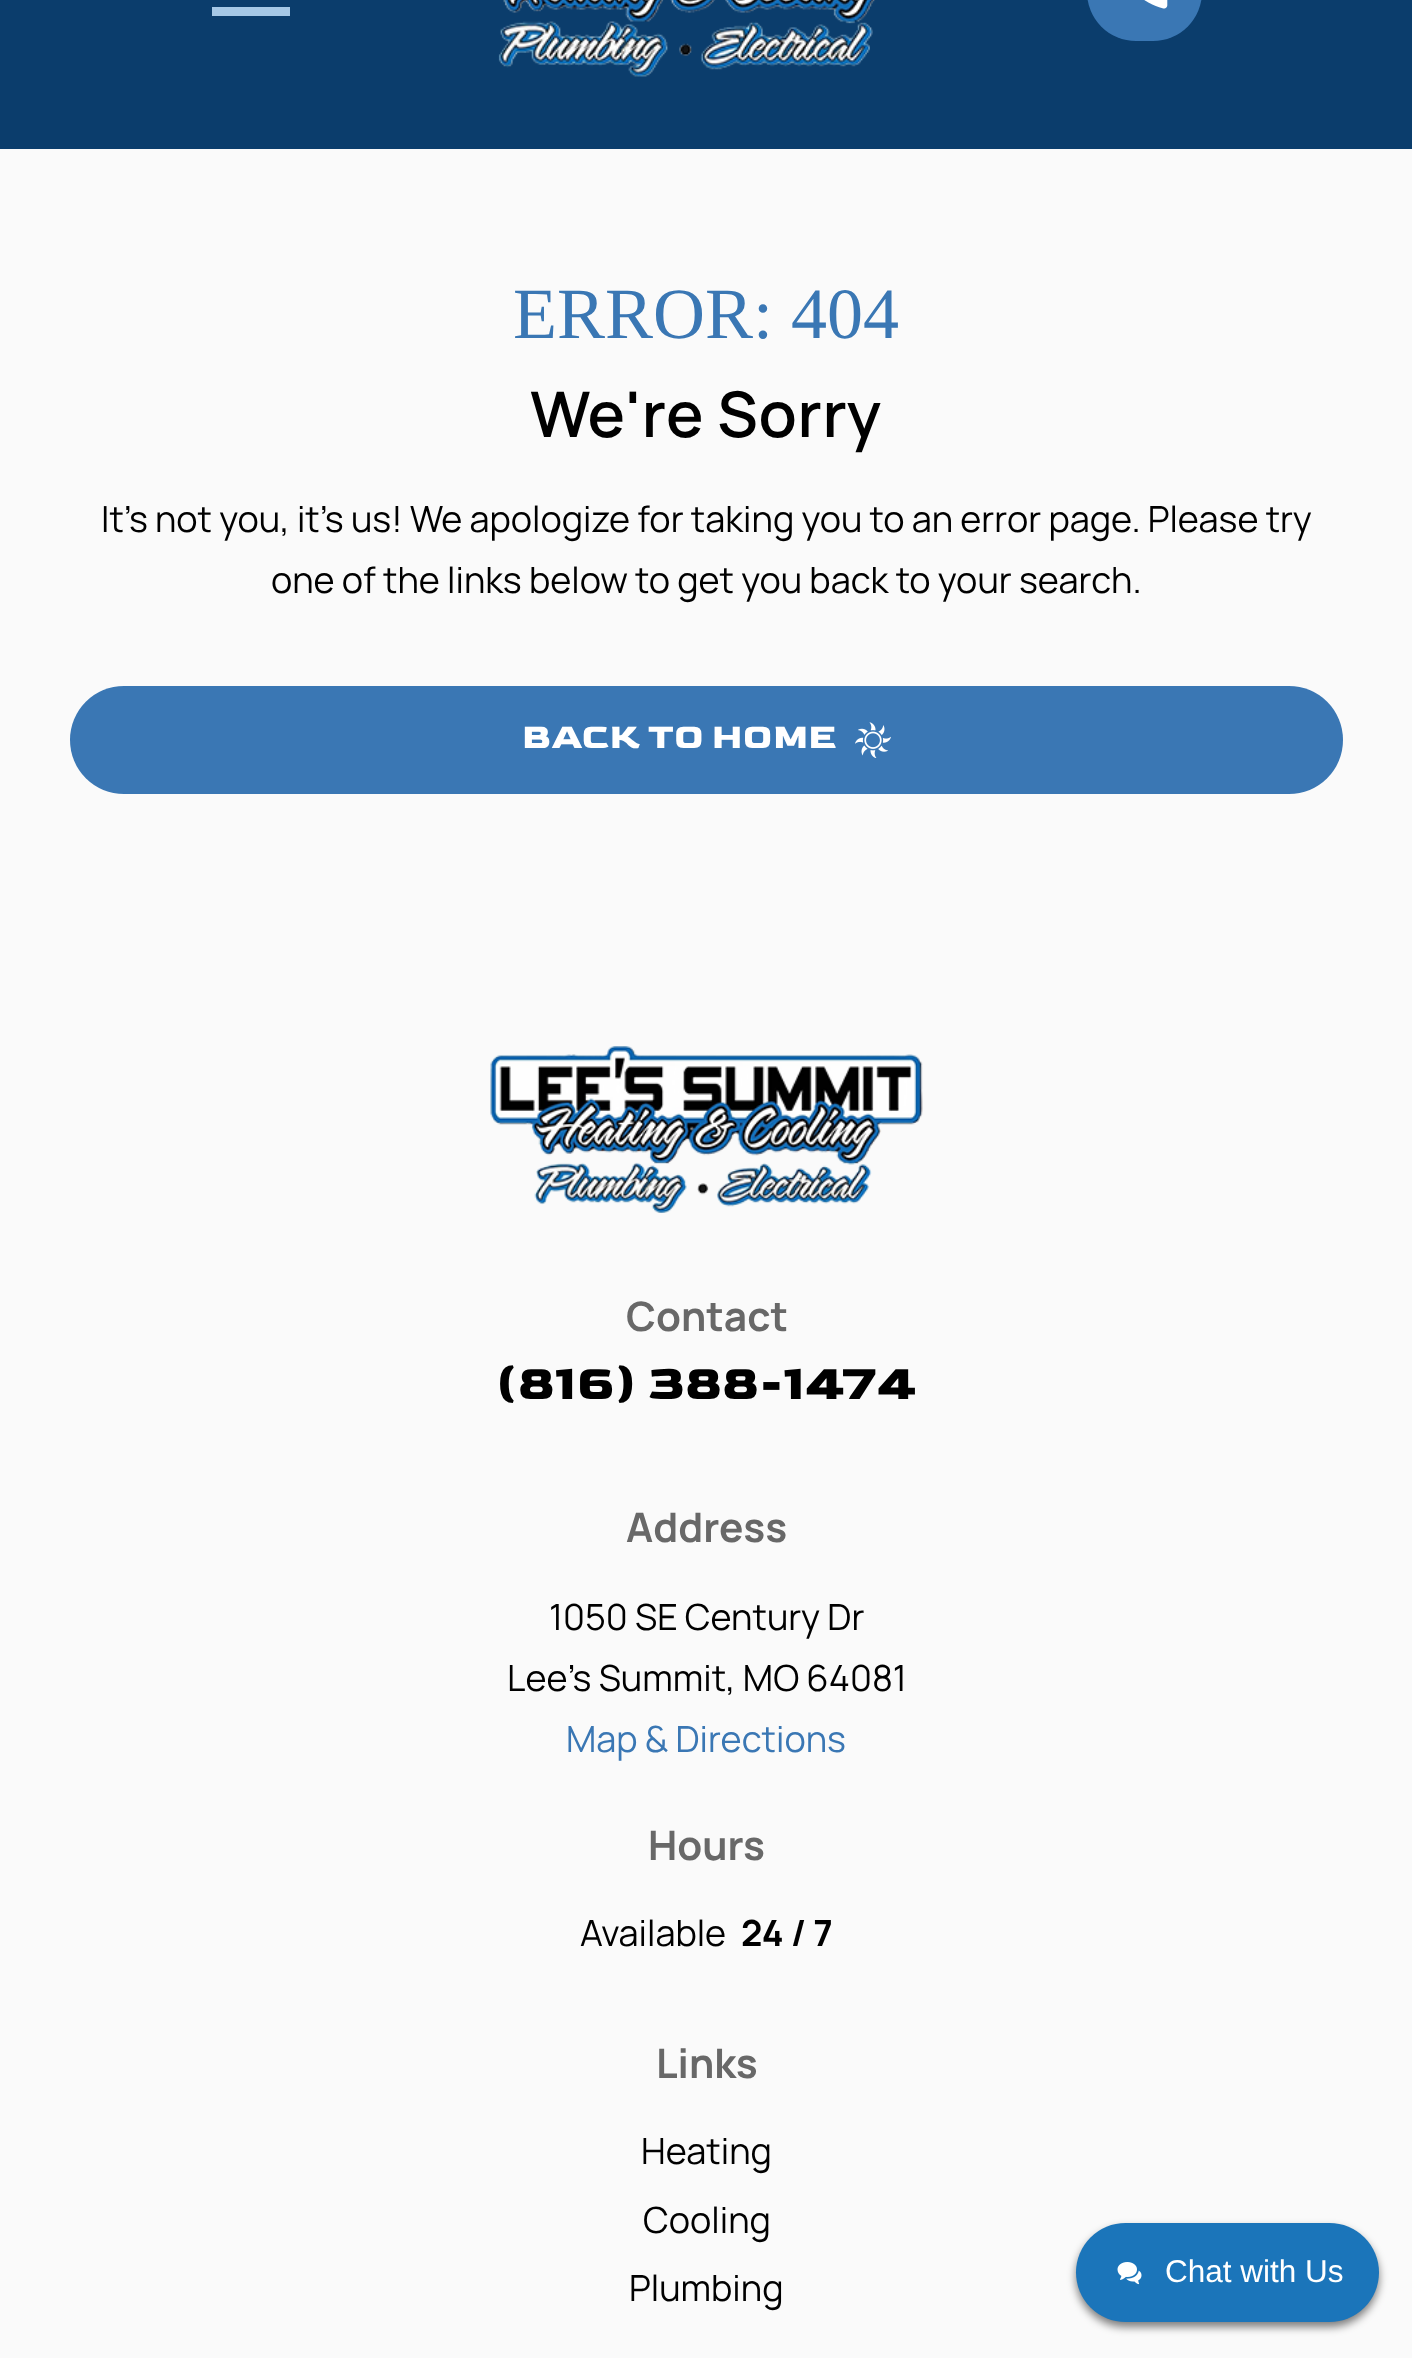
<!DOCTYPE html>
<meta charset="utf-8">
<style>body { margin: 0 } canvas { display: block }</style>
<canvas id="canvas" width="1412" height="2358"></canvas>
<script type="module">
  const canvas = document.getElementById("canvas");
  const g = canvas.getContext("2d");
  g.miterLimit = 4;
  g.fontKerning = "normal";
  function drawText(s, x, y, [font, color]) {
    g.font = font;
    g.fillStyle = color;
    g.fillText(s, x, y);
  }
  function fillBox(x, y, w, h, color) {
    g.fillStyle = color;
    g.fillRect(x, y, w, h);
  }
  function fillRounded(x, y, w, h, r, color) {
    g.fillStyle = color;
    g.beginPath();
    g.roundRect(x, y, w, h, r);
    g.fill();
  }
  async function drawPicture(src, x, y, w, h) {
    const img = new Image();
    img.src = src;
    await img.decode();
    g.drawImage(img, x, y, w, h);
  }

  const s1 = ["72px Liberation Serif", "#3A77B4"];
  const s2 = ["600 63px Manrope", "#000000"];
  const s3 = ["36px Manrope", "#000000"];
  const s4 = ["bold 36px Goldman", "#FFFFFF"];
  const s5 = ["bold 40.5px Manrope", "#686868"];
  const s6 = ["bold 50.5px Goldman", "#000000"];
  const s7 = ["36px Manrope", "#3A77B4"];
  const s8 = ["bold 36px Manrope", "#000000"];
  const s9 = ["31.5px Liberation Sans", "#FFFFFF"];

  fillBox(0, 0, 1412, 2358, "#FAFAFA");
  fillBox(0, 0, 1412, 149, "#0B3D6C");
  g.save();
  g.beginPath();
  g.rect(212, 0, 78, 25);
  g.clip();
  g.fillStyle = "#A6C8E6";
  g.beginPath();
  g.moveTo(212, -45);
  g.lineTo(212, -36);
  g.lineTo(291, -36);
  g.lineTo(291, -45);
  g.closePath();
  g.moveTo(212, -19);
  g.lineTo(212, -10);
  g.lineTo(291, -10);
  g.lineTo(291, -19);
  g.closePath();
  g.moveTo(212, 7);
  g.lineTo(212, 16);
  g.lineTo(291, 16);
  g.lineTo(291, 7);
  g.closePath();
  g.fill();
  g.restore();
  await drawPicture("pic1.png", 498, 0, 377, 77);
  fillRounded(1087, -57, 115, 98, 56.5, "#3A77B4");
  await drawPicture("pic2.png", 1144, 0, 24, 9);
  drawText("ERROR: 404", 513, 338, s1);
  g.letterSpacing = "0.6px";
  drawText("We're Sorry", 530, 437, s2);
  g.letterSpacing = "0px";
  drawText("It's not you, it's us! We apologize for taking you to an error page. Please try", 101, 532, s3);
  drawText("one of the links below to get you back to your search.", 271, 593, s3);
  fillRounded(70, 686, 1273, 108, 54, "#3A77B4");
  drawText("BACK TO HOME", 522, 748, s4);
  await drawPicture("pic3.png", 855, 722, 36, 36);
  await drawPicture("pic4.png", 490, 1046, 433, 167);
  drawText("Contact", 626, 1331, s5);
  drawText("(816) 388-1474", 496, 1399, s6);
  drawText("Address", 626, 1542, s5);
  drawText("1050 SE Century Dr", 549, 1630, s3);
  drawText("Lee's Summit, MO 64081", 507, 1691, s3);
  drawText("Map & Directions", 566, 1752, s7);
  drawText("Hours", 648, 1860, s5);
  drawText("Available", 580, 1946, s3);
  drawText("24 / 7", 741, 1946, s8);
  drawText("Links", 656, 2078, s5);
  drawText("Heating", 641, 2164, s3);
  drawText("Cooling", 643, 2233, s3);
  drawText("Plumbing", 629, 2301, s3);
  g.fillStyle = "rgba(0, 0, 0, 0.5)";
  g.filter = "blur(4.5px)";
  g.beginPath();
  g.roundRect(1076, 2228, 303, 99, 49.5);
  g.fill();
  g.filter = "none";
  fillRounded(1076, 2223, 303, 99, 49.5, "#1B75BA");
  await drawPicture("pic5.png", 1117, 2262, 25, 23);
  drawText("Chat with Us", 1165, 2282, s9);
</script>
